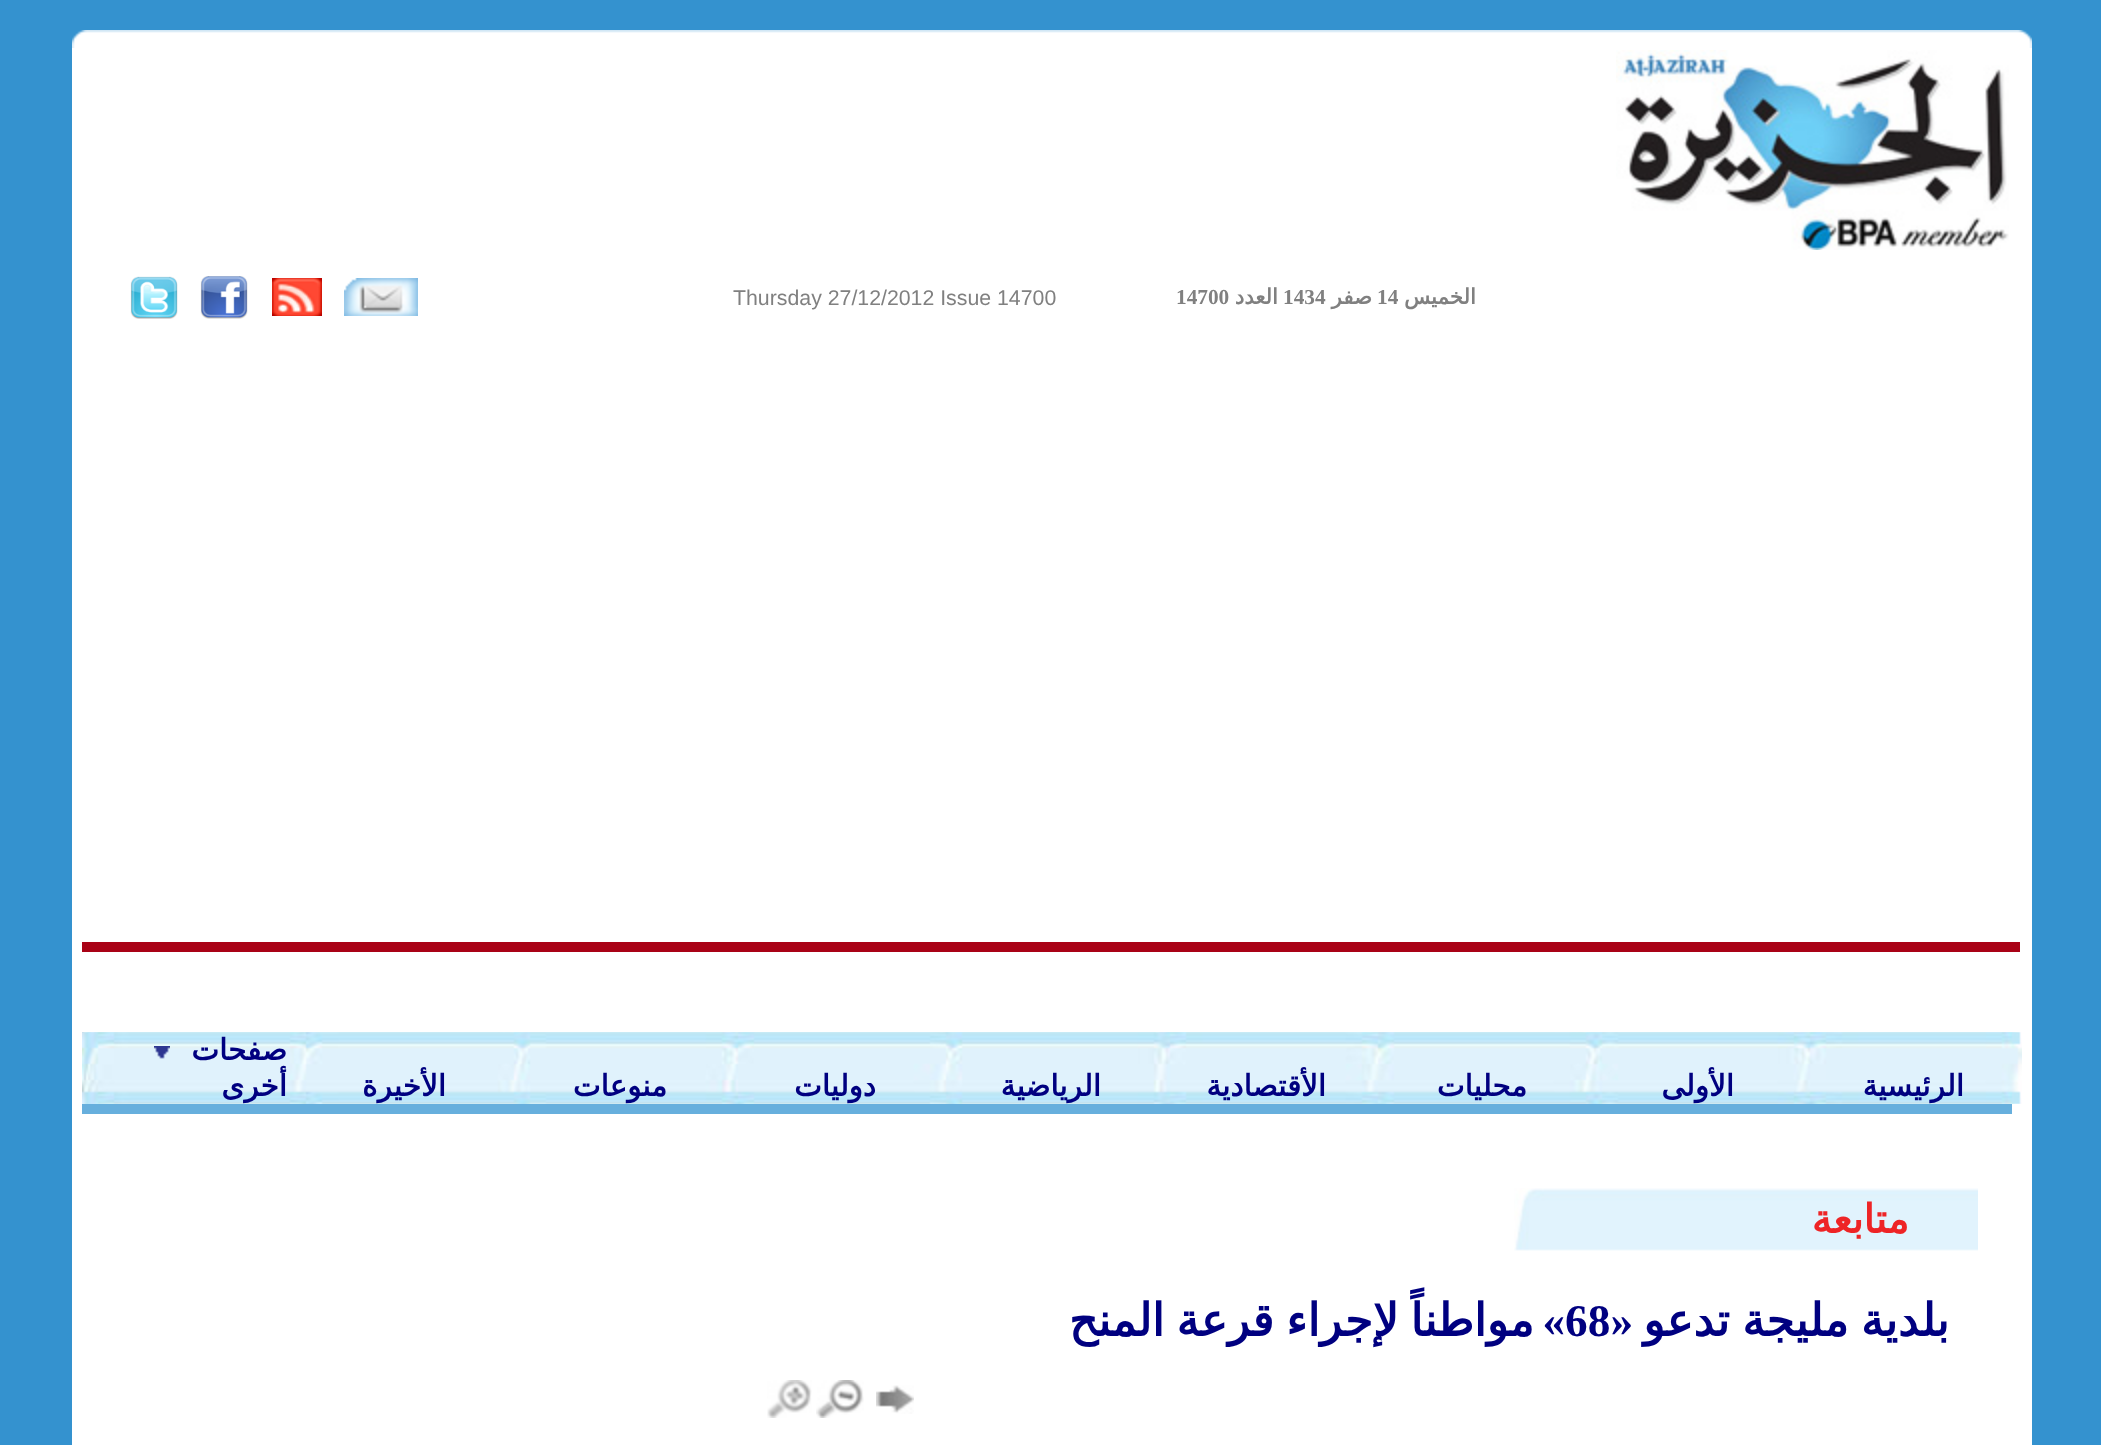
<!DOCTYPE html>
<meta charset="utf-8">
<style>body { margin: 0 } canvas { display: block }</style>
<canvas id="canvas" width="2101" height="1445"></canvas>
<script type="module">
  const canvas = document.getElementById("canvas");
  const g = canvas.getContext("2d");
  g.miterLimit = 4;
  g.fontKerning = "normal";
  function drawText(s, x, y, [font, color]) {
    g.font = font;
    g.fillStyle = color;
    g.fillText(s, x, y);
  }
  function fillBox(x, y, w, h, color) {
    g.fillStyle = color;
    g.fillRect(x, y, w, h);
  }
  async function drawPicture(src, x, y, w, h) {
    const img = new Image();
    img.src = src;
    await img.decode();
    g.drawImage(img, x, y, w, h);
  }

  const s1 = ["bold 21.3px DejaVu Sans", "#808080"];
  const s2 = ["bold 21.3px Liberation Serif", "#808080"];
  const s3 = ["21.3px Liberation Sans", "#808080"];
  const s4 = ["bold 29.5px DejaVu Sans", "#000080"];
  const s5 = ["bold 40px DejaVu Sans", "#EE2426"];
  const s6 = ["bold 45.25px DejaVu Sans", "#000080"];
  const s7 = ["bold 45.25px Liberation Serif", "#000080"];

  fillBox(0, 0, 2101, 1445, "#3492CF");
  await drawPicture("pic1.png", 72, 30, 1960, 18);
  fillBox(72, 48, 1960, 1397, "#FFFFFF");
  await drawPicture("pic2.png", 1616, 50, 393, 200);
  g.direction = "rtl";
  drawText("الخميس", 1476, 304, s1);
  g.direction = "ltr";
  drawText("14", 1377, 304, s2);
  g.direction = "rtl";
  drawText("صفر", 1372, 304, s1);
  g.direction = "ltr";
  drawText("1434", 1283, 304, s2);
  g.direction = "rtl";
  drawText("العدد", 1278, 304, s1);
  g.direction = "ltr";
  drawText("14700", 1176, 304, s2);
  drawText("Thursday 27/12/2012 Issue 14700", 733, 305, s3);
  await drawPicture("pic3.png", 344, 278, 74, 38);
  await drawPicture("pic4.png", 272, 278, 50, 38);
  await drawPicture("pic5.png", 200, 276, 48, 43);
  await drawPicture("pic6.png", 130, 276, 48, 43);
  fillBox(82, 942, 1938, 10, "#A90216");
  await drawPicture("pic7.png", 82, 1032, 1940, 72);
  g.direction = "rtl";
  drawText("الرئيسية", 1964, 1096, s4);
  drawText("الأولى", 1734, 1096, s4);
  drawText("محليات", 1527, 1096, s4);
  drawText("الأقتصادية", 1326, 1096, s4);
  drawText("الرياضية", 1101, 1096, s4);
  drawText("دوليات", 876, 1096, s4);
  drawText("منوعات", 667, 1096, s4);
  drawText("الأخيرة", 446, 1096, s4);
  drawText("صفحات", 287, 1060, s4);
  await drawPicture("pic8.png", 154, 1046, 16, 13);
  drawText("أخرى", 287, 1096, s4);
  fillBox(82, 1104, 1930, 10, "#67AFDD");
  await drawPicture("pic9.png", 1514, 1188, 464, 63);
  drawText("متابعة", 1909, 1233, s5);
  g.wordSpacing = "-2px";
  drawText("بلدية مليجة تدعو", 1949, 1336, s6);
  g.wordSpacing = "0px";
  drawText("«", 1633, 1336, s7);
  g.direction = "ltr";
  drawText("68", 1565, 1336, s7);
  g.direction = "rtl";
  drawText("»", 1565, 1336, s7);
  g.wordSpacing = "-2.5px";
  drawText("مواطناً لإجراء قرعة المنح", 1534, 1336, s6);
  await drawPicture("pic10.png", 876, 1385, 38, 29);
  await drawPicture("pic11.png", 816, 1380, 48, 38);
  await drawPicture("pic12.png", 767, 1380, 45, 38);
</script>
